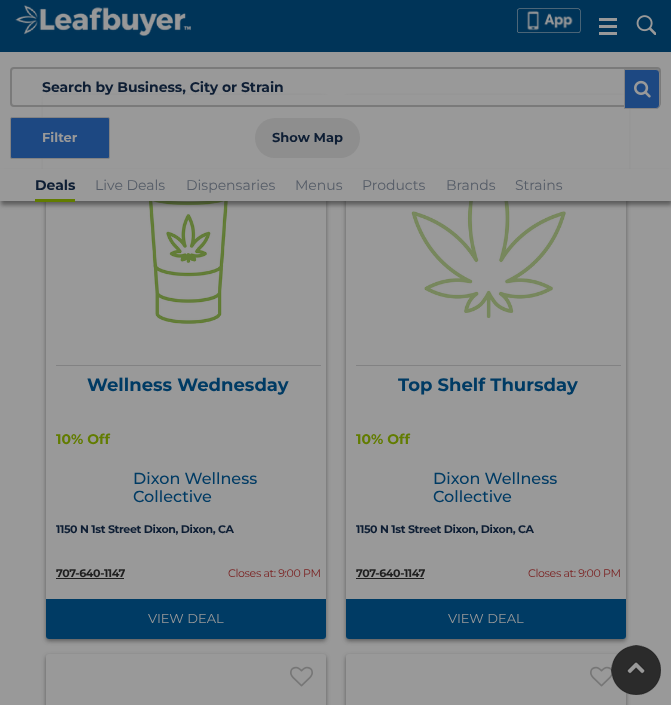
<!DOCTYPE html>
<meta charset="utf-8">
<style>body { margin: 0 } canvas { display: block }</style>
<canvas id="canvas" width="671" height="705"></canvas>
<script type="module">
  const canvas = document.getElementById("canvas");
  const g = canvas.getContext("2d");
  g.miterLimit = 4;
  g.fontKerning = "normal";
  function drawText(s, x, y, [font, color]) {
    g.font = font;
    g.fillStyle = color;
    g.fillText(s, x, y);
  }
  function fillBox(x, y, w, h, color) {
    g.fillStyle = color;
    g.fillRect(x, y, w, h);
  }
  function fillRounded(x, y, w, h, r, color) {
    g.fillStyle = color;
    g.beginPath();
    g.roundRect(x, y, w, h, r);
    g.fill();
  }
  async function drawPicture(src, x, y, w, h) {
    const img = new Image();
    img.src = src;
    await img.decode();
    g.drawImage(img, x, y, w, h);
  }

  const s1 = ["bold 14px Montserrat", "#0E1E34"];
  const s2 = ["bold 13px Montserrat", "#999999"];
  const s3 = ["bold 13px Montserrat", "#0E1E34"];
  const s4 = ["14px Montserrat", "#555C67"];
  const s5 = ["bold 18px Montserrat", "#003B64"];
  const s6 = ["bold 14px Montserrat", "#627C00"];
  const s7 = ["500 16px Montserrat", "#003B64"];
  const s8 = ["bold 11px Montserrat", "#0E1E34"];
  const s9 = ["bold 11px Montserrat", "#1F1F1F"];
  const s10 = ["11px Montserrat", "#7A1F1F"];
  const s11 = ["13px Montserrat", "#999999"];

  fillBox(0, 0, 671, 705, "#999999");
  fillBox(0, 0, 671, 52, "#003458");
  await drawPicture("pic1.png", 15, 5, 176, 31);
  await drawPicture("pic2.png", 517, 8, 64, 25);
  fillBox(599, 18, 18, 3, "#999999");
  fillBox(599, 25, 18, 3, "#999999");
  fillBox(599, 32, 18, 3, "#999999");
  await drawPicture("pic3.png", 636, 15, 20, 20);
  g.fillStyle = "rgba(31, 31, 31, 0.5)";
  g.filter = "blur(2px)";
  g.beginPath();
  g.roundRect(46, 98, 280, 543, 3);
  g.fill();
  g.filter = "none";
  fillRounded(46, 96, 280, 543, 3, "#999999");
  g.fillStyle = "rgba(31, 31, 31, 0.5)";
  g.filter = "blur(2px)";
  g.beginPath();
  g.roundRect(346, 98, 280, 543, 3);
  g.fill();
  g.filter = "none";
  fillRounded(346, 96, 280, 543, 3, "#999999");
  fillBox(43, 95, 586, 74, "#999999");
  g.beginPath();
  g.roundRect(11, 68, 649, 38, 3);
  g.strokeStyle = "#7A7A7A";
  g.lineWidth = 2;
  g.stroke();
  g.letterSpacing = "-0.05px";
  drawText("Search by Business, City or Strain", 42, 92, s1);
  g.fillStyle = "#1D4882";
  g.beginPath();
  g.roundRect(624.5, 69.5, 35, 39, [0, 3.5, 3.5, 0]);
  g.fill();
  g.strokeStyle = "#828283";
  g.lineWidth = 1;
  g.stroke();
  await drawPicture("pic4.png", 634, 80, 17, 18);
  g.beginPath();
  g.roundRect(10.5, 117.5, 99, 41, 1.5);
  g.fill();
  g.stroke();
  g.letterSpacing = "0px";
  drawText("Filter", 42, 142, s2);
  fillRounded(255, 118, 105, 40, 20, "#8E8E8E");
  drawText("Show Map", 272, 142, s3);
  await drawPicture("pic5.png", 147, 201, 81, 123);
  await drawPicture("pic6.png", 411, 201, 155, 117);
  g.fillStyle = "rgba(31, 31, 31, 0.5)";
  g.filter = "blur(2px)";
  g.beginPath();
  g.rect(1, 173, 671, 32);
  g.fill();
  g.filter = "none";
  fillBox(0, 169, 671, 32, "#999999");
  drawText("Deals", 35, 190, s1);
  fillBox(35, 199, 40, 3, "#627C00");
  drawText("Live Deals", 95, 190, s4);
  drawText("Dispensaries", 186, 190, s4);
  drawText("Menus", 295, 190, s4);
  drawText("Products", 362, 190, s4);
  drawText("Brands", 446, 190, s4);
  drawText("Strains", 515, 190, s4);
  fillBox(56, 365, 265, 1, "#828283");
  drawText("Wellness Wednesday", 87, 391, s5);
  drawText("10% Off", 56, 444, s6);
  drawText("Dixon Wellness", 133, 484, s7);
  drawText("Collective", 133, 502, s7);
  g.letterSpacing = "-0.35px";
  drawText("1150 N 1st Street Dixon, Dixon, CA", 56, 533, s8);
  drawText("707-640-1147", 56, 577, s9);
  fillBox(56, 578, 68, 1, "#1F1F1F");
  drawText("Closes at: 9:00 PM", 228, 577, s10);
  g.fillStyle = "#003B64";
  g.beginPath();
  g.roundRect(46, 599, 280, 40, [0, 0, 3, 3]);
  g.fill();
  g.letterSpacing = "0px";
  drawText("VIEW DEAL", 148, 623, s11);
  fillBox(356, 365, 265, 1, "#828283");
  drawText("Top Shelf Thursday", 398, 391, s5);
  drawText("10% Off", 356, 444, s6);
  drawText("Dixon Wellness", 433, 484, s7);
  drawText("Collective", 433, 502, s7);
  g.letterSpacing = "-0.35px";
  drawText("1150 N 1st Street Dixon, Dixon, CA", 356, 533, s8);
  drawText("707-640-1147", 356, 577, s9);
  fillBox(356, 578, 68, 1, "#1F1F1F");
  drawText("Closes at: 9:00 PM", 528, 577, s10);
  g.fillStyle = "#003B64";
  g.beginPath();
  g.roundRect(346, 599, 280, 40, [0, 0, 3, 3]);
  g.fill();
  g.letterSpacing = "0px";
  drawText("VIEW DEAL", 448, 623, s11);
  g.fillStyle = "rgba(31, 31, 31, 0.5)";
  g.filter = "blur(2px)";
  g.beginPath();
  g.roundRect(46, 656, 280, 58, 3);
  g.fill();
  g.filter = "none";
  fillRounded(46, 654, 280, 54, 3, "#999999");
  await drawPicture("pic7.png", 290, 666, 23, 21);
  g.fillStyle = "rgba(31, 31, 31, 0.5)";
  g.filter = "blur(2px)";
  g.beginPath();
  g.roundRect(346, 656, 280, 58, 3);
  g.fill();
  g.filter = "none";
  fillRounded(346, 654, 280, 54, 3, "#999999");
  await drawPicture("pic7.png", 590, 666, 23, 21);
  await drawPicture("pic8.png", 611, 645, 50, 50);
</script>
